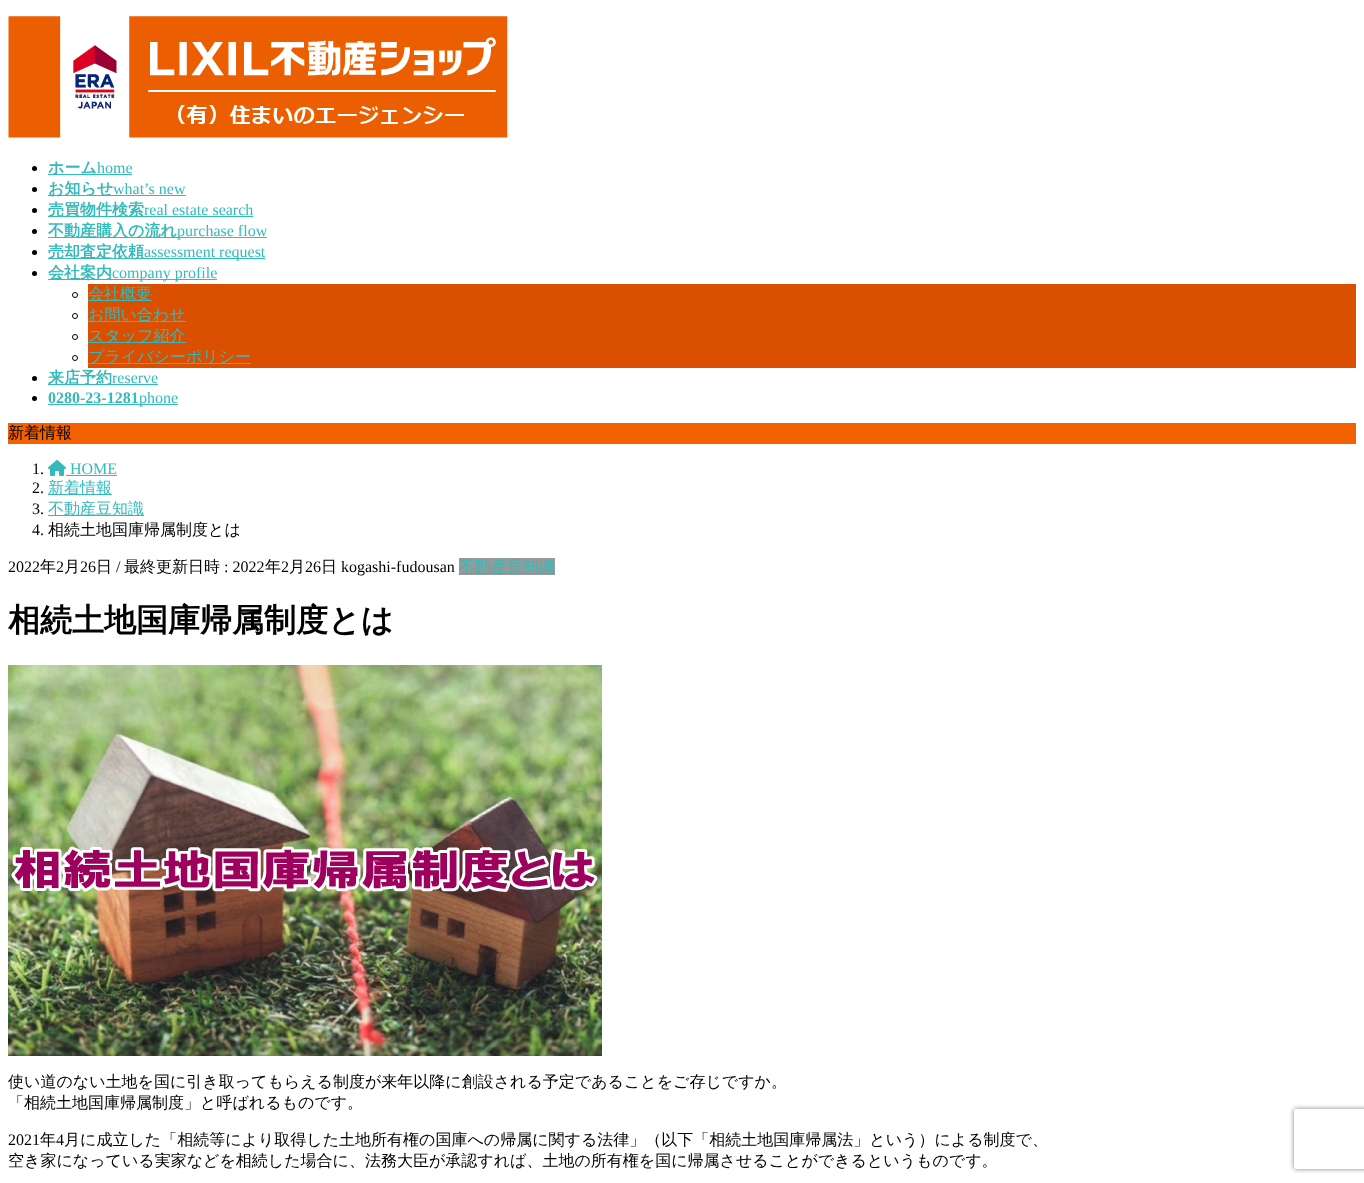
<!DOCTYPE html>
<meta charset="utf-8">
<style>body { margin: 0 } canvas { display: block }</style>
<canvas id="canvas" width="1364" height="1183"></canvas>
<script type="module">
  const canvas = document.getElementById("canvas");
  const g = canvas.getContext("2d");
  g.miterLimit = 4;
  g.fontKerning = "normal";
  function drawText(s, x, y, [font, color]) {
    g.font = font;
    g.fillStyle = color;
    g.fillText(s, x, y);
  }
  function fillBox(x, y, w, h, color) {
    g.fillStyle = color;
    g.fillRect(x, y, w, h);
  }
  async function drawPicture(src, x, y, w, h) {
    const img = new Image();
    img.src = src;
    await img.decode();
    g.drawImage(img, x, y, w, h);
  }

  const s1 = ["bold 16px WenQuanYi Zen Hei", "#34BABA"];
  const s2 = ["16px Liberation Serif", "#34BABA"];
  const s3 = ["500 16px WenQuanYi Zen Hei", "#34BABA"];
  const s4 = ["bold 16px Liberation Serif", "#34BABA"];
  const s5 = ["500 16px WenQuanYi Zen Hei", "#000000"];
  const s6 = ["16px Liberation Serif", "#000000"];
  const s7 = ["bold 32px WenQuanYi Zen Hei", "#000000"];

  fillBox(0, 0, 1364, 1183, "#FFFFFF");
  await drawPicture("pic1.png", 8, 16, 500, 122);
  g.fillStyle = "#000000";
  g.beginPath();
  g.arc(34.5, 168.5, 2.5, 0, Math.PI * 2);
  g.fill();
  fillBox(48, 174, 84, 1, "#34BABA");
  drawText("ホーム", 48, 173, s1);
  drawText("home", 97, 173, s2);
  g.fillStyle = "#000000";
  g.beginPath();
  g.arc(34.5, 189.5, 2.5, 0, Math.PI * 2);
  g.fill();
  fillBox(48, 195, 138, 1, "#34BABA");
  drawText("お知らせ", 48, 194, s1);
  drawText("what’s new", 113, 194, s2);
  g.fillStyle = "#000000";
  g.beginPath();
  g.arc(34.5, 210.5, 2.5, 0, Math.PI * 2);
  g.fill();
  fillBox(48, 216, 205, 1, "#34BABA");
  drawText("売買物件検索", 48, 215, s1);
  drawText("real estate search", 144, 215, s2);
  g.fillStyle = "#000000";
  g.beginPath();
  g.arc(34.5, 231.5, 2.5, 0, Math.PI * 2);
  g.fill();
  fillBox(48, 237, 219, 1, "#34BABA");
  drawText("不動産購入の流れ", 48, 236, s1);
  drawText("purchase flow", 177, 236, s2);
  g.fillStyle = "#000000";
  g.beginPath();
  g.arc(34.5, 252.5, 2.5, 0, Math.PI * 2);
  g.fill();
  fillBox(48, 258, 217, 1, "#34BABA");
  drawText("売却査定依頼", 48, 257, s1);
  drawText("assessment request", 144, 257, s2);
  g.fillStyle = "#000000";
  g.beginPath();
  g.arc(34.5, 273.5, 2.5, 0, Math.PI * 2);
  g.fill();
  fillBox(48, 279, 169, 1, "#34BABA");
  drawText("会社案内", 48, 278, s1);
  drawText("company profile", 112, 278, s2);
  fillBox(88, 284, 1268, 84, "#DB5000");
  g.beginPath();
  g.arc(75, 295, 2.5, 0, Math.PI * 2);
  g.strokeStyle = "#000000";
  g.stroke();
  fillBox(88, 300, 64, 1, "#34BABA");
  drawText("会社概要", 88, 299, s3);
  g.beginPath();
  g.arc(75, 316, 2.5, 0, Math.PI * 2);
  g.stroke();
  fillBox(88, 321, 98, 1, "#34BABA");
  drawText("お問い合わせ", 88, 320, s3);
  g.beginPath();
  g.arc(75, 337, 2.5, 0, Math.PI * 2);
  g.stroke();
  fillBox(88, 342, 98, 1, "#34BABA");
  drawText("スタッフ紹介", 88, 341, s3);
  g.beginPath();
  g.arc(75, 358, 2.5, 0, Math.PI * 2);
  g.stroke();
  fillBox(88, 363, 163, 1, "#34BABA");
  drawText("プライバシーポリシー", 88, 362, s3);
  g.fillStyle = "#000000";
  g.beginPath();
  g.arc(34.5, 378.5, 2.5, 0, Math.PI * 2);
  g.fill();
  fillBox(48, 384, 110, 1, "#34BABA");
  drawText("来店予約", 48, 383, s1);
  drawText("reserve", 112, 383, s2);
  g.fillStyle = "#000000";
  g.beginPath();
  g.arc(34.5, 398.5, 2.5, 0, Math.PI * 2);
  g.fill();
  drawText("0280-23-1281", 48, 403, s4);
  fillBox(48, 404, 130, 1, "#34BABA");
  drawText("phone", 139, 403, s2);
  fillBox(8, 423, 1348, 21, "#F46100");
  drawText("新着情報", 8, 438, s5);
  drawText("1.", 32, 474, s6);
  await drawPicture("pic2.png", 48, 460, 18, 16);
  drawText("HOME", 70, 474, s2);
  fillBox(66, 475, 51, 1, "#34BABA");
  drawText("2.", 32, 493, s6);
  fillBox(48, 494, 64, 1, "#34BABA");
  drawText("新着情報", 48, 493, s3);
  drawText("3.", 32, 514, s6);
  fillBox(48, 515, 96, 1, "#34BABA");
  drawText("不動産豆知識", 48, 514, s3);
  drawText("4.", 32, 535, s6);
  drawText("相続土地国庫帰属制度とは", 48, 535, s5);
  drawText("2022", 8, 572, s6);
  drawText("年", 40, 572, s5);
  drawText("2", 56, 572, s6);
  drawText("月", 64, 572, s5);
  drawText("26", 80, 572, s6);
  drawText("日", 96, 572, s5);
  drawText("/", 116, 572, s6);
  drawText("最終更新日時", 124, 572, s5);
  drawText(": 2022", 224, 572, s6);
  drawText("年", 265, 572, s5);
  drawText("2", 281, 572, s6);
  drawText("月", 289, 572, s5);
  drawText("26", 305, 572, s6);
  drawText("日", 321, 572, s5);
  drawText("kogashi-fudousan", 341, 572, s6);
  fillBox(459, 558, 96, 17, "#999999");
  fillBox(459, 573, 96, 1, "#34BABA");
  drawText("不動産豆知識", 459, 572, s3);
  drawText("相続土地国庫帰属制度とは", 8, 631, s7);
  await drawPicture("pic3.png", 8, 665, 594, 391);
  drawText("使い道のない土地を国に引き取ってもらえる制度が来年以降に創設される予定であることをご存じですか。", 8, 1087, s5);
  drawText("「相続土地国庫帰属制度」と呼ばれるものです。", 8, 1108, s5);
  drawText("2021", 8, 1145, s6);
  drawText("年", 40, 1145, s5);
  drawText("4", 56, 1145, s6);
  drawText("月に成立した「相続等により取得した土地所有権の国庫への帰属に関する法律」（以下「相続土地国庫帰属法」という）による制度で、", 64, 1145, s5);
  drawText("空き家になっている実家などを相続した場合に、法務大臣が承認すれば、土地の所有権を国に帰属させることができるというものです。", 8, 1166, s5);
  g.save();
  g.beginPath();
  g.moveTo(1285, 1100);
  g.lineTo(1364, 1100);
  g.lineTo(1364, 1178);
  g.lineTo(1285, 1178);
  g.closePath();
  g.moveTo(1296, 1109);
  g.lineTo(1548, 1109);
  g.bezierCurveTo(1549, 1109, 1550, 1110, 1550, 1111);
  g.lineTo(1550, 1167);
  g.bezierCurveTo(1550, 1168, 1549, 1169, 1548, 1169);
  g.lineTo(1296, 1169);
  g.bezierCurveTo(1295, 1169, 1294, 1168, 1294, 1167);
  g.lineTo(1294, 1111);
  g.bezierCurveTo(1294, 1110, 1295, 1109, 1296, 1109);
  g.closePath();
  g.clip("evenodd");
  g.fillStyle = "#808080";
  g.filter = "blur(2.5px)";
  g.beginPath();
  g.roundRect(1294, 1109, 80, 60, 2);
  g.fill();
  g.filter = "none";
  g.restore();
</script>
